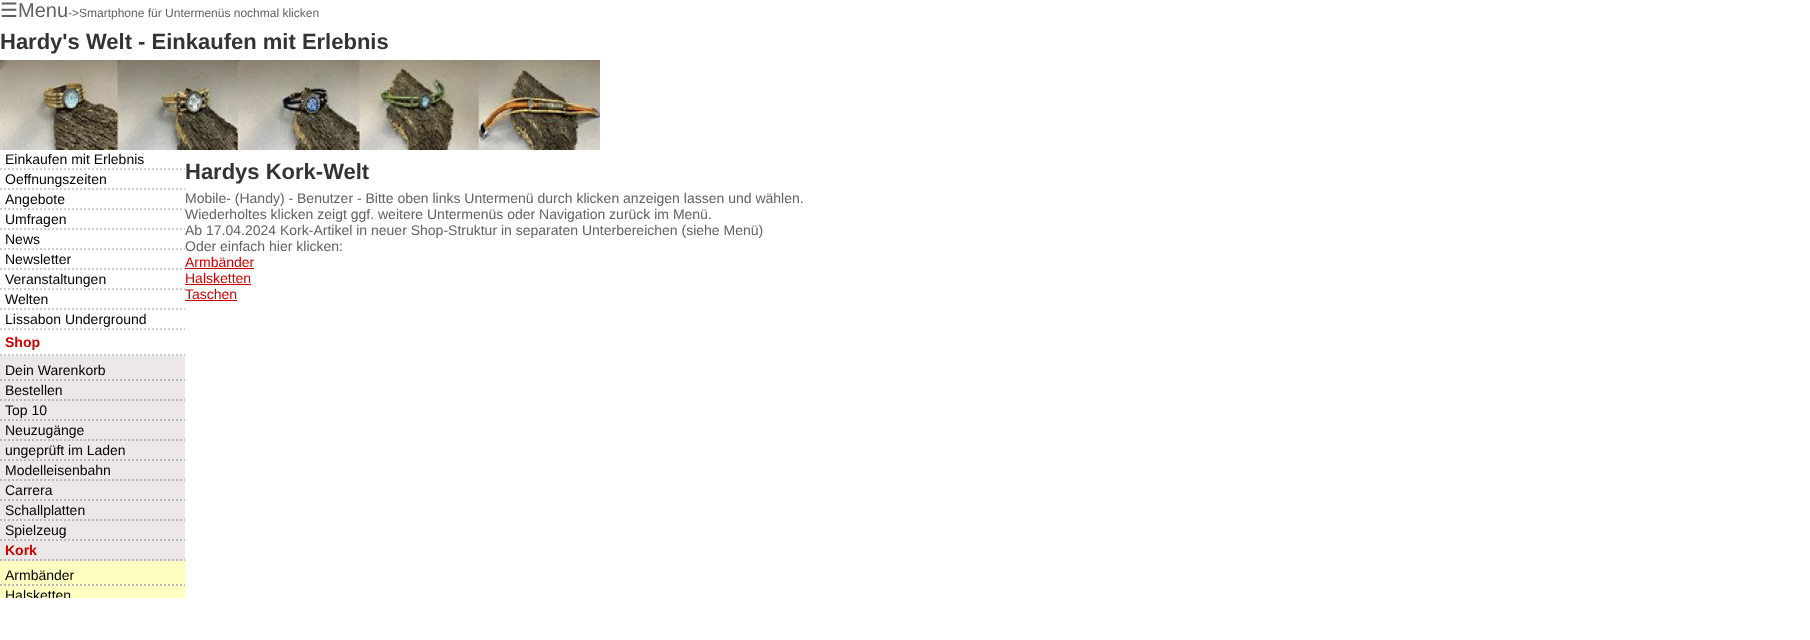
<!DOCTYPE html>
<meta charset="utf-8">
<style>body { margin: 0 } canvas { display: block }</style>
<canvas id="canvas" width="1810" height="640"></canvas>
<script type="module">
  const canvas = document.getElementById("canvas");
  const g = canvas.getContext("2d");
  g.miterLimit = 4;
  g.fontKerning = "normal";
  function drawText(s, x, y, [font, color]) {
    g.font = font;
    g.fillStyle = color;
    g.fillText(s, x, y);
  }
  function fillBox(x, y, w, h, color) {
    g.fillStyle = color;
    g.fillRect(x, y, w, h);
  }
  async function drawPicture(src, x, y, w, h) {
    const img = new Image();
    img.src = src;
    await img.decode();
    g.drawImage(img, x, y, w, h);
  }

  const s1 = ["20px DejaVu Sans", "#616161"];
  const s2 = ["20px Liberation Sans", "#616161"];
  const s3 = ["12px Liberation Sans", "#616161"];
  const s4 = ["bold 22px Liberation Sans", "#333333"];
  const s5 = ["14px Liberation Sans", "#000000"];
  const s6 = ["bold 14px Liberation Sans", "#CC0000"];
  const s7 = ["14px Liberation Sans", "#616161"];
  const s8 = ["14px Liberation Sans", "#CC0000"];

  fillBox(0, 0, 1810, 640, "#FFFFFF");
  drawText("☰", 0, 17, s1);
  drawText("Menu", 18, 17, s2);
  drawText("->Smartphone für Untermenüs nochmal klicken", 68, 17, s3);
  drawText("Hardy's Welt - Einkaufen mit Erlebnis", 0, 49, s4);
  await drawPicture("pic1.png", 0, 60, 600, 90);
  g.beginPath();
  g.moveTo(0, 169);
  g.lineTo(185, 169);
  g.strokeStyle = "#CCCCCC";
  g.lineWidth = 2;
  g.setLineDash([2, 2]);
  g.stroke();
  drawText("Einkaufen mit Erlebnis", 5, 164, s5);
  g.beginPath();
  g.moveTo(0, 189);
  g.lineTo(185, 189);
  g.stroke();
  drawText("Oeffnungszeiten", 5, 184, s5);
  g.beginPath();
  g.moveTo(0, 209);
  g.lineTo(185, 209);
  g.stroke();
  drawText("Angebote", 5, 204, s5);
  g.beginPath();
  g.moveTo(0, 229);
  g.lineTo(185, 229);
  g.stroke();
  drawText("Umfragen", 5, 224, s5);
  g.beginPath();
  g.moveTo(0, 249);
  g.lineTo(185, 249);
  g.stroke();
  drawText("News", 5, 244, s5);
  g.beginPath();
  g.moveTo(0, 269);
  g.lineTo(185, 269);
  g.stroke();
  drawText("Newsletter", 5, 264, s5);
  g.beginPath();
  g.moveTo(0, 289);
  g.lineTo(185, 289);
  g.stroke();
  drawText("Veranstaltungen", 5, 284, s5);
  g.beginPath();
  g.moveTo(0, 309);
  g.lineTo(185, 309);
  g.stroke();
  drawText("Welten", 5, 304, s5);
  g.beginPath();
  g.moveTo(0, 329);
  g.lineTo(185, 329);
  g.stroke();
  drawText("Lissabon Underground", 5, 324, s5);
  g.beginPath();
  g.moveTo(0, 355);
  g.lineTo(185, 355);
  g.stroke();
  drawText("Shop", 5, 347, s6);
  fillBox(0, 356, 185, 205, "#EDE8E8");
  g.beginPath();
  g.moveTo(0, 380);
  g.lineTo(185, 380);
  g.strokeStyle = "#B8B8B8";
  g.stroke();
  drawText("Dein Warenkorb", 5, 375, s5);
  g.beginPath();
  g.moveTo(0, 400);
  g.lineTo(185, 400);
  g.stroke();
  drawText("Bestellen", 5, 395, s5);
  g.beginPath();
  g.moveTo(0, 420);
  g.lineTo(185, 420);
  g.stroke();
  drawText("Top 10", 5, 415, s5);
  g.beginPath();
  g.moveTo(0, 440);
  g.lineTo(185, 440);
  g.stroke();
  drawText("Neuzugänge", 5, 435, s5);
  g.beginPath();
  g.moveTo(0, 460);
  g.lineTo(185, 460);
  g.stroke();
  drawText("ungeprüft im Laden", 5, 455, s5);
  g.beginPath();
  g.moveTo(0, 480);
  g.lineTo(185, 480);
  g.stroke();
  drawText("Modelleisenbahn", 5, 475, s5);
  g.beginPath();
  g.moveTo(0, 500);
  g.lineTo(185, 500);
  g.stroke();
  drawText("Carrera", 5, 495, s5);
  g.beginPath();
  g.moveTo(0, 520);
  g.lineTo(185, 520);
  g.stroke();
  drawText("Schallplatten", 5, 515, s5);
  g.beginPath();
  g.moveTo(0, 540);
  g.lineTo(185, 540);
  g.stroke();
  drawText("Spielzeug", 5, 535, s5);
  g.beginPath();
  g.moveTo(0, 560);
  g.lineTo(185, 560);
  g.stroke();
  drawText("Kork", 5, 555, s6);
  fillBox(0, 561, 185, 37, "#FFFFC2");
  g.beginPath();
  g.moveTo(0, 585);
  g.lineTo(185, 585);
  g.stroke();
  drawText("Armbänder", 5, 580, s5);
  g.save();
  g.beginPath();
  g.rect(0, 150, 185, 448);
  g.clip();
  drawText("Halsketten", 5, 600, s5);
  g.restore();
  drawText("Hardys Kork-Welt", 185, 179, s4);
  drawText("Mobile- (Handy) - Benutzer - Bitte oben links Untermenü durch klicken anzeigen lassen und wählen.", 185, 203, s7);
  drawText("Wiederholtes klicken zeigt ggf. weitere Untermenüs oder Navigation zurück im Menü.", 185, 219, s7);
  drawText("Ab 17.04.2024 Kork-Artikel in neuer Shop-Struktur in separaten Unterbereichen (siehe Menü)", 185, 235, s7);
  drawText("Oder einfach hier klicken:", 185, 251, s7);
  drawText("Armbänder", 185, 267, s8);
  fillBox(185, 268, 69, 1, "#CC0000");
  drawText("Halsketten", 185, 283, s8);
  fillBox(185, 284, 66, 1, "#CC0000");
  drawText("Taschen", 185, 299, s8);
  fillBox(185, 300, 52, 1, "#CC0000");
</script>
